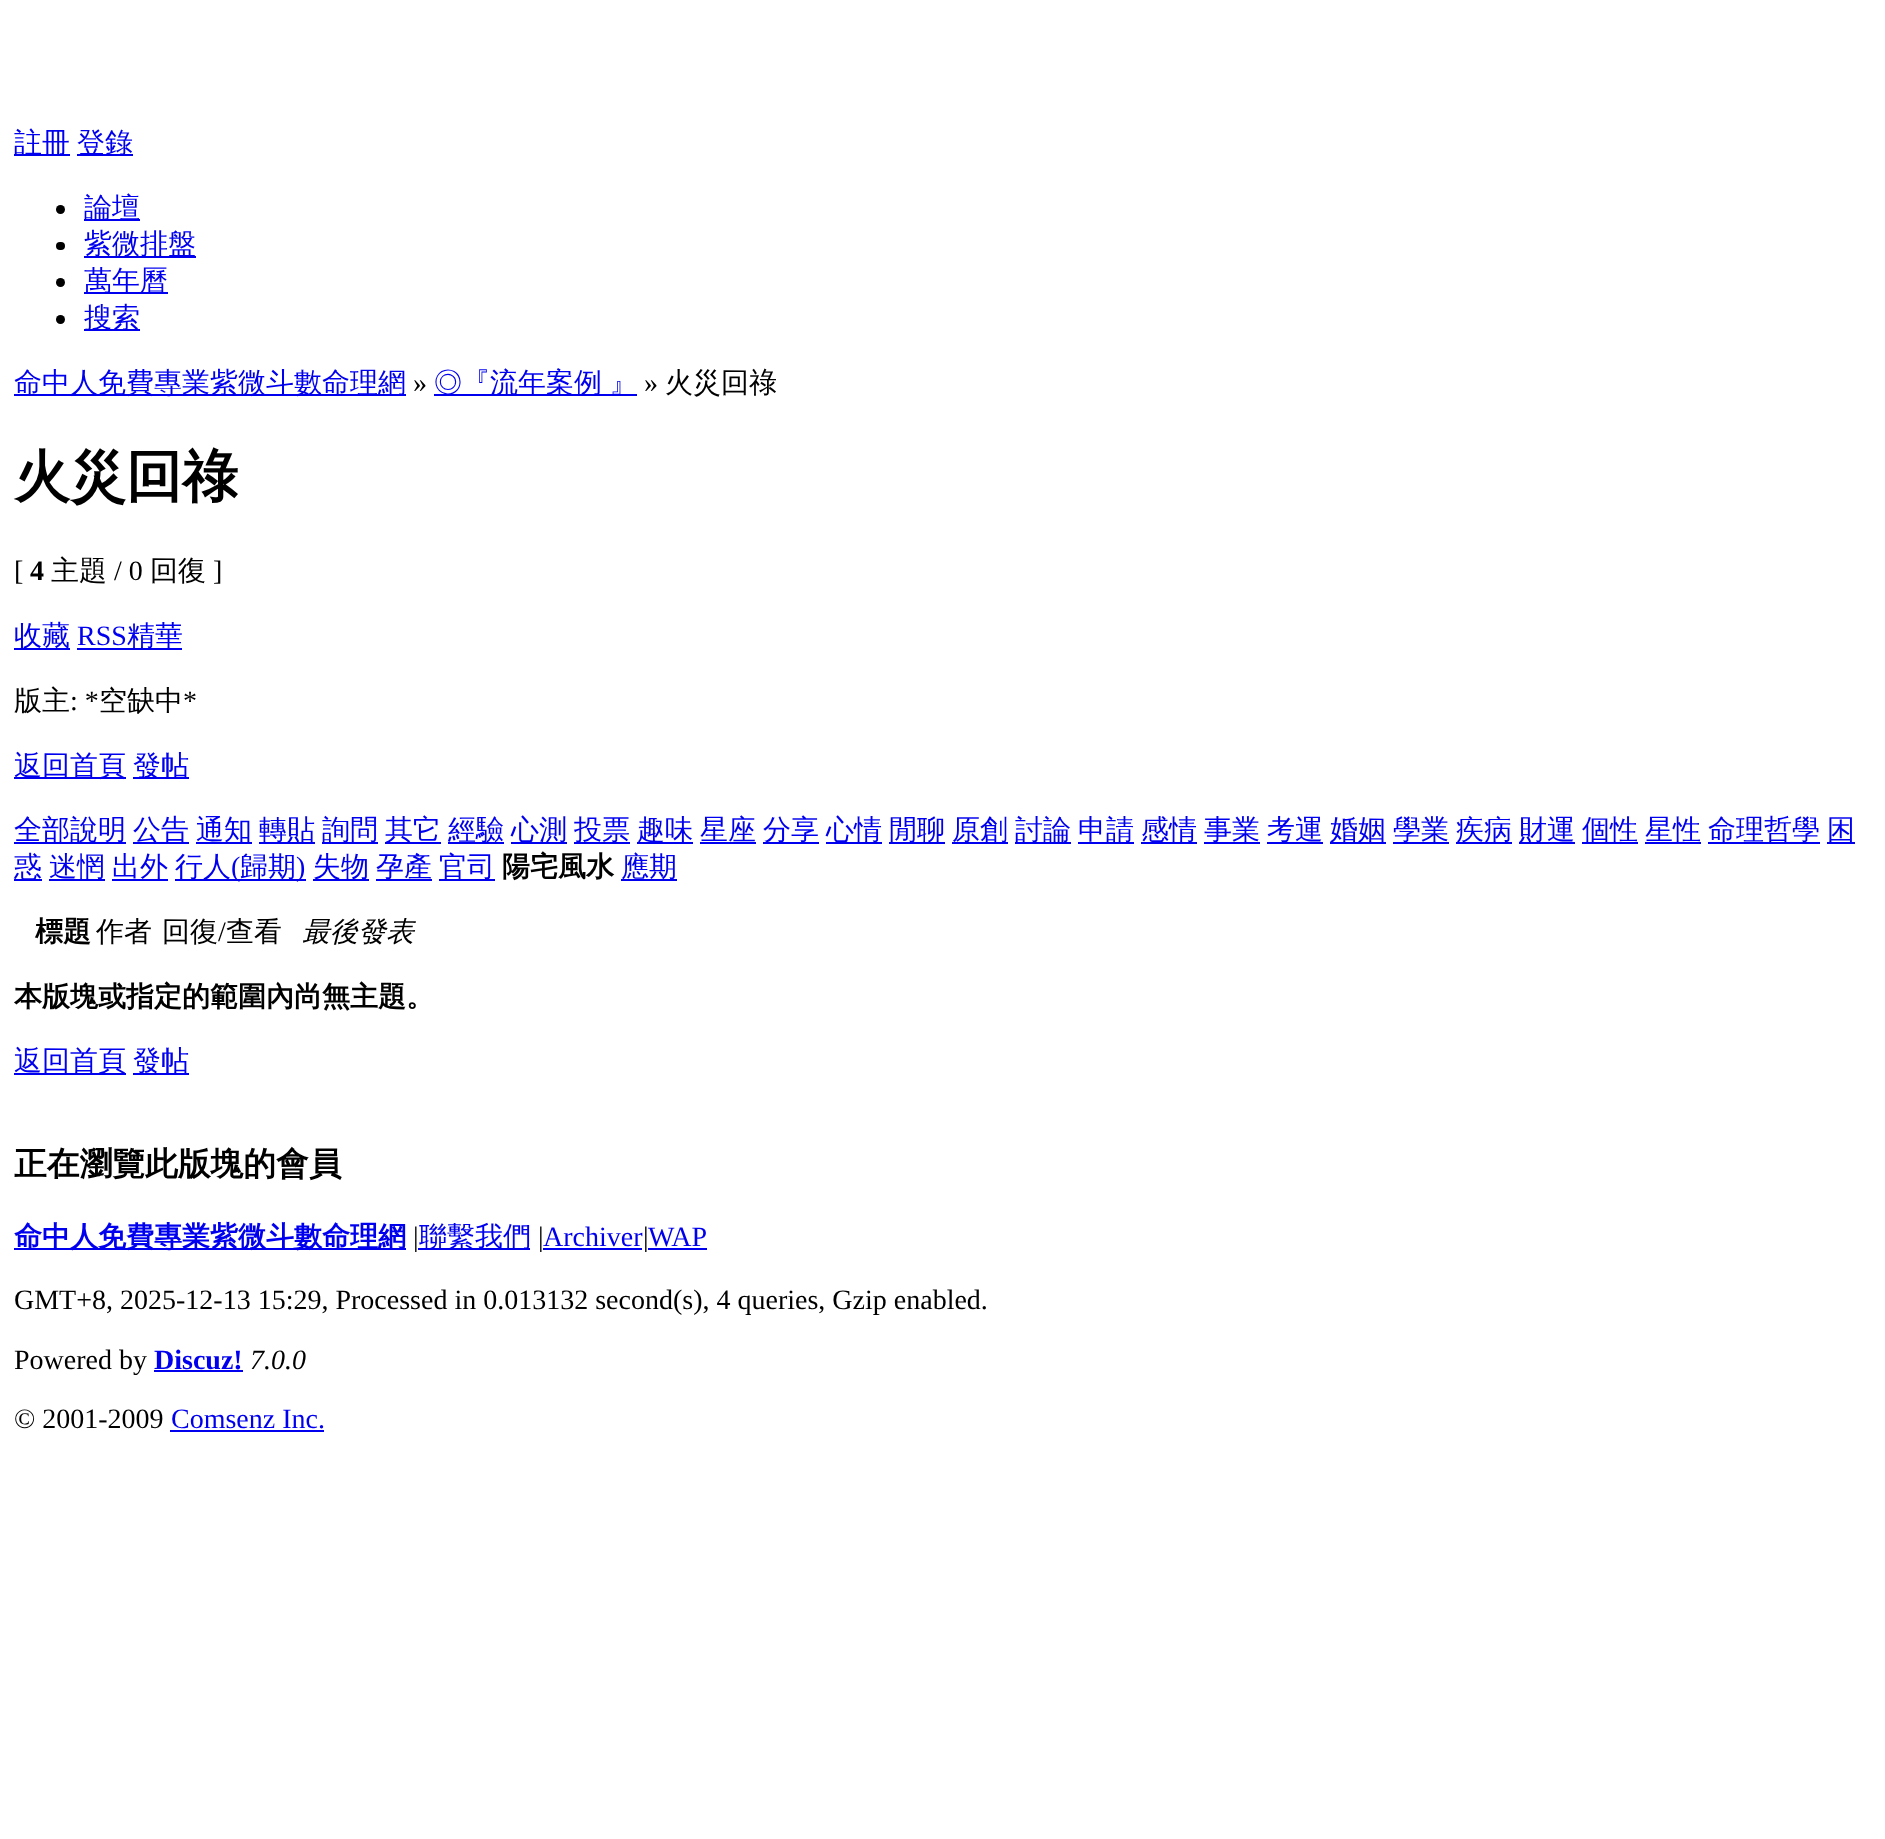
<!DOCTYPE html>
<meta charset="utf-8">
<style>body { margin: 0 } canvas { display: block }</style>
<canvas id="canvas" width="1885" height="1839"></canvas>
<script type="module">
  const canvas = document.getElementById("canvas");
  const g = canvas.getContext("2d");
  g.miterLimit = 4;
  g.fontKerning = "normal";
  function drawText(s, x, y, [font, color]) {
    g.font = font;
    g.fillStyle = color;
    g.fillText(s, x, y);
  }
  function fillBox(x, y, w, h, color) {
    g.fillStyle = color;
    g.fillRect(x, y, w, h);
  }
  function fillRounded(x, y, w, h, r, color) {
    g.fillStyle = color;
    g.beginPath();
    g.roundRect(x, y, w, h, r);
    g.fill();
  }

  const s1 = ["500 28px WenQuanYi Zen Hei", "#0000EE"];
  const s2 = ["28px Liberation Serif", "#000000"];
  const s3 = ["500 28px WenQuanYi Zen Hei", "#000000"];
  const s4 = ["bold 56px WenQuanYi Zen Hei", "#000000"];
  const s5 = ["bold 28px Liberation Serif", "#000000"];
  const s6 = ["28px Liberation Serif", "#0000EE"];
  const s7 = ["bold 28px WenQuanYi Zen Hei", "#000000"];
  const s8 = ["italic 500 28px WenQuanYi Zen Hei", "#000000"];
  const s9 = ["bold 32.75px WenQuanYi Zen Hei", "#000000"];
  const s10 = ["bold 28px WenQuanYi Zen Hei", "#0000EE"];
  const s11 = ["bold 28px Liberation Serif", "#0000EE"];
  const s12 = ["italic 28px Liberation Serif", "#000000"];

  fillBox(0, 0, 1885, 1839, "#FFFFFF");
  fillBox(14, 154, 56, 2, "#0000EE");
  drawText("註冊", 14, 152, s1);
  fillBox(77, 154, 56, 2, "#0000EE");
  drawText("登錄", 77, 152, s1);
  g.fillStyle = "#000000";
  g.beginPath();
  g.arc(60.5, 209.5, 4.5, 0, Math.PI * 2);
  g.fill();
  fillBox(84, 219, 56, 2, "#0000EE");
  drawText("論壇", 84, 217, s1);
  fillRounded(56, 242, 9, 8, 4, "#000000");
  fillBox(84, 256, 112, 2, "#0000EE");
  drawText("紫微排盤", 84, 253, s1);
  g.fillStyle = "#000000";
  g.beginPath();
  g.arc(60.5, 282.5, 4.5, 0, Math.PI * 2);
  g.fill();
  fillBox(84, 292, 84, 2, "#0000EE");
  drawText("萬年曆", 84, 290, s1);
  g.fillStyle = "#000000";
  g.beginPath();
  g.arc(60.5, 319.5, 4.5, 0, Math.PI * 2);
  g.fill();
  fillBox(84, 329, 56, 2, "#0000EE");
  drawText("搜索", 84, 327, s1);
  fillBox(14, 394, 392, 2, "#0000EE");
  drawText("命中人免費專業紫微斗數命理網", 14, 392, s1);
  drawText("»", 413, 392, s2);
  fillBox(434, 394, 203, 2, "#0000EE");
  g.wordSpacing = "-1px";
  drawText("◎『流年案例 』", 434, 392, s1);
  g.wordSpacing = "0px";
  drawText("»", 644, 392, s2);
  drawText("火災回祿", 665, 392, s3);
  drawText("火災回祿", 14, 496, s4);
  drawText("[", 14, 580, s2);
  drawText("4", 30, 580, s5);
  drawText("主題", 51, 580, s3);
  drawText("/ 0", 114, 580, s2);
  drawText("回復", 150, 580, s3);
  drawText("]", 213, 580, s2);
  fillBox(14, 648, 56, 2, "#0000EE");
  drawText("收藏", 14, 645, s1);
  drawText("RSS", 77, 645, s6);
  fillBox(77, 648, 105, 2, "#0000EE");
  drawText("精華", 127, 645, s1);
  drawText("版主", 14, 710, s3);
  drawText(": *", 70, 710, s2);
  drawText("空缺中", 99, 710, s3);
  drawText("*", 183, 710, s2);
  fillBox(14, 777, 112, 2, "#0000EE");
  drawText("返回首頁", 14, 775, s1);
  fillBox(133, 777, 56, 2, "#0000EE");
  drawText("發帖", 133, 775, s1);
  fillBox(14, 842, 112, 2, "#0000EE");
  drawText("全部說明", 14, 839, s1);
  fillBox(133, 842, 56, 2, "#0000EE");
  drawText("公告", 133, 839, s1);
  fillBox(196, 842, 56, 2, "#0000EE");
  drawText("通知", 196, 839, s1);
  fillBox(259, 842, 56, 2, "#0000EE");
  drawText("轉貼", 259, 839, s1);
  fillBox(322, 842, 56, 2, "#0000EE");
  drawText("詢問", 322, 839, s1);
  fillBox(385, 842, 56, 2, "#0000EE");
  drawText("其它", 385, 839, s1);
  fillBox(448, 842, 56, 2, "#0000EE");
  drawText("經驗", 448, 839, s1);
  fillBox(511, 842, 56, 2, "#0000EE");
  drawText("心測", 511, 839, s1);
  fillBox(574, 842, 56, 2, "#0000EE");
  drawText("投票", 574, 839, s1);
  fillBox(637, 842, 56, 2, "#0000EE");
  drawText("趣味", 637, 839, s1);
  drawText("星座", 700, 839, s1);
  fillBox(700, 842, 56, 2, "#0000EE");
  fillBox(763, 842, 56, 2, "#0000EE");
  drawText("分享", 763, 839, s1);
  fillBox(826, 842, 56, 2, "#0000EE");
  drawText("心情", 826, 839, s1);
  fillBox(889, 842, 56, 2, "#0000EE");
  drawText("閒聊", 889, 839, s1);
  fillBox(952, 842, 56, 2, "#0000EE");
  drawText("原創", 952, 839, s1);
  fillBox(1015, 842, 56, 2, "#0000EE");
  drawText("討論", 1015, 839, s1);
  fillBox(1078, 842, 56, 2, "#0000EE");
  drawText("申請", 1078, 839, s1);
  fillBox(1141, 842, 56, 2, "#0000EE");
  drawText("感情", 1141, 839, s1);
  fillBox(1204, 842, 56, 2, "#0000EE");
  drawText("事業", 1204, 839, s1);
  fillBox(1267, 842, 56, 2, "#0000EE");
  drawText("考運", 1267, 839, s1);
  fillBox(1330, 842, 56, 2, "#0000EE");
  drawText("婚姻", 1330, 839, s1);
  fillBox(1393, 842, 56, 2, "#0000EE");
  drawText("學業", 1393, 839, s1);
  fillBox(1456, 842, 56, 2, "#0000EE");
  drawText("疾病", 1456, 839, s1);
  fillBox(1519, 842, 56, 2, "#0000EE");
  drawText("財運", 1519, 839, s1);
  fillBox(1582, 842, 56, 2, "#0000EE");
  drawText("個性", 1582, 839, s1);
  fillBox(1645, 842, 56, 2, "#0000EE");
  drawText("星性", 1645, 839, s1);
  fillBox(1708, 842, 112, 2, "#0000EE");
  drawText("命理哲學", 1708, 839, s1);
  fillBox(1827, 842, 28, 2, "#0000EE");
  drawText("困", 1827, 839, s1);
  fillBox(14, 879, 28, 2, "#0000EE");
  drawText("惑", 14, 876, s1);
  fillBox(49, 879, 56, 2, "#0000EE");
  drawText("迷惘", 49, 876, s1);
  fillBox(112, 879, 56, 2, "#0000EE");
  drawText("出外", 112, 876, s1);
  fillBox(175, 879, 131, 2, "#0000EE");
  drawText("行人", 175, 876, s1);
  drawText("(", 231, 876, s6);
  drawText("歸期", 240, 876, s1);
  drawText(")", 296, 876, s6);
  fillBox(313, 879, 56, 2, "#0000EE");
  drawText("失物", 313, 876, s1);
  fillBox(376, 879, 56, 2, "#0000EE");
  drawText("孕產", 376, 876, s1);
  fillBox(439, 879, 56, 2, "#0000EE");
  drawText("官司", 439, 876, s1);
  drawText("陽宅風水", 502, 876, s7);
  fillBox(621, 879, 56, 2, "#0000EE");
  drawText("應期", 621, 876, s1);
  drawText("標題", 35, 941, s7);
  drawText("作者", 96, 941, s3);
  drawText("回復", 162, 941, s3);
  drawText("/", 218, 941, s2);
  drawText("查看", 226, 941, s3);
  drawText("最後發表", 302, 941, s8);
  drawText("本版塊或指定的範圍內尚無主題。", 14, 1006, s7);
  fillBox(14, 1073, 112, 2, "#0000EE");
  drawText("返回首頁", 14, 1070, s1);
  fillBox(133, 1073, 56, 2, "#0000EE");
  drawText("發帖", 133, 1070, s1);
  drawText("正在瀏覽此版塊的會員", 14, 1175, s9);
  fillBox(14, 1248, 392, 2, "#0000EE");
  drawText("命中人免費專業紫微斗數命理網", 14, 1246, s10);
  drawText("|", 413, 1246, s2);
  fillBox(418, 1248, 112, 2, "#0000EE");
  drawText("聯繫我們", 419, 1246, s1);
  drawText("|", 538, 1246, s2);
  drawText("Archiver", 543, 1246, s6);
  fillBox(543, 1248, 99, 2, "#0000EE");
  drawText("|", 643, 1246, s2);
  drawText("WAP", 648, 1246, s6);
  fillBox(648, 1248, 59, 2, "#0000EE");
  drawText("GMT+8, 2025-12-13 15:29, Processed in 0.013132 second(s), 4 queries, Gzip enabled.", 14, 1309, s2);
  drawText("Powered by", 14, 1369, s2);
  drawText("Discuz!", 154, 1369, s11);
  fillBox(154, 1370, 89, 2, "#0000EE");
  drawText("7.0.0", 250, 1369, s12);
  drawText("© 2001-2009", 14, 1428, s2);
  drawText("Comsenz Inc.", 171, 1428, s6);
  fillBox(170, 1430, 154, 2, "#0000EE");
</script>
